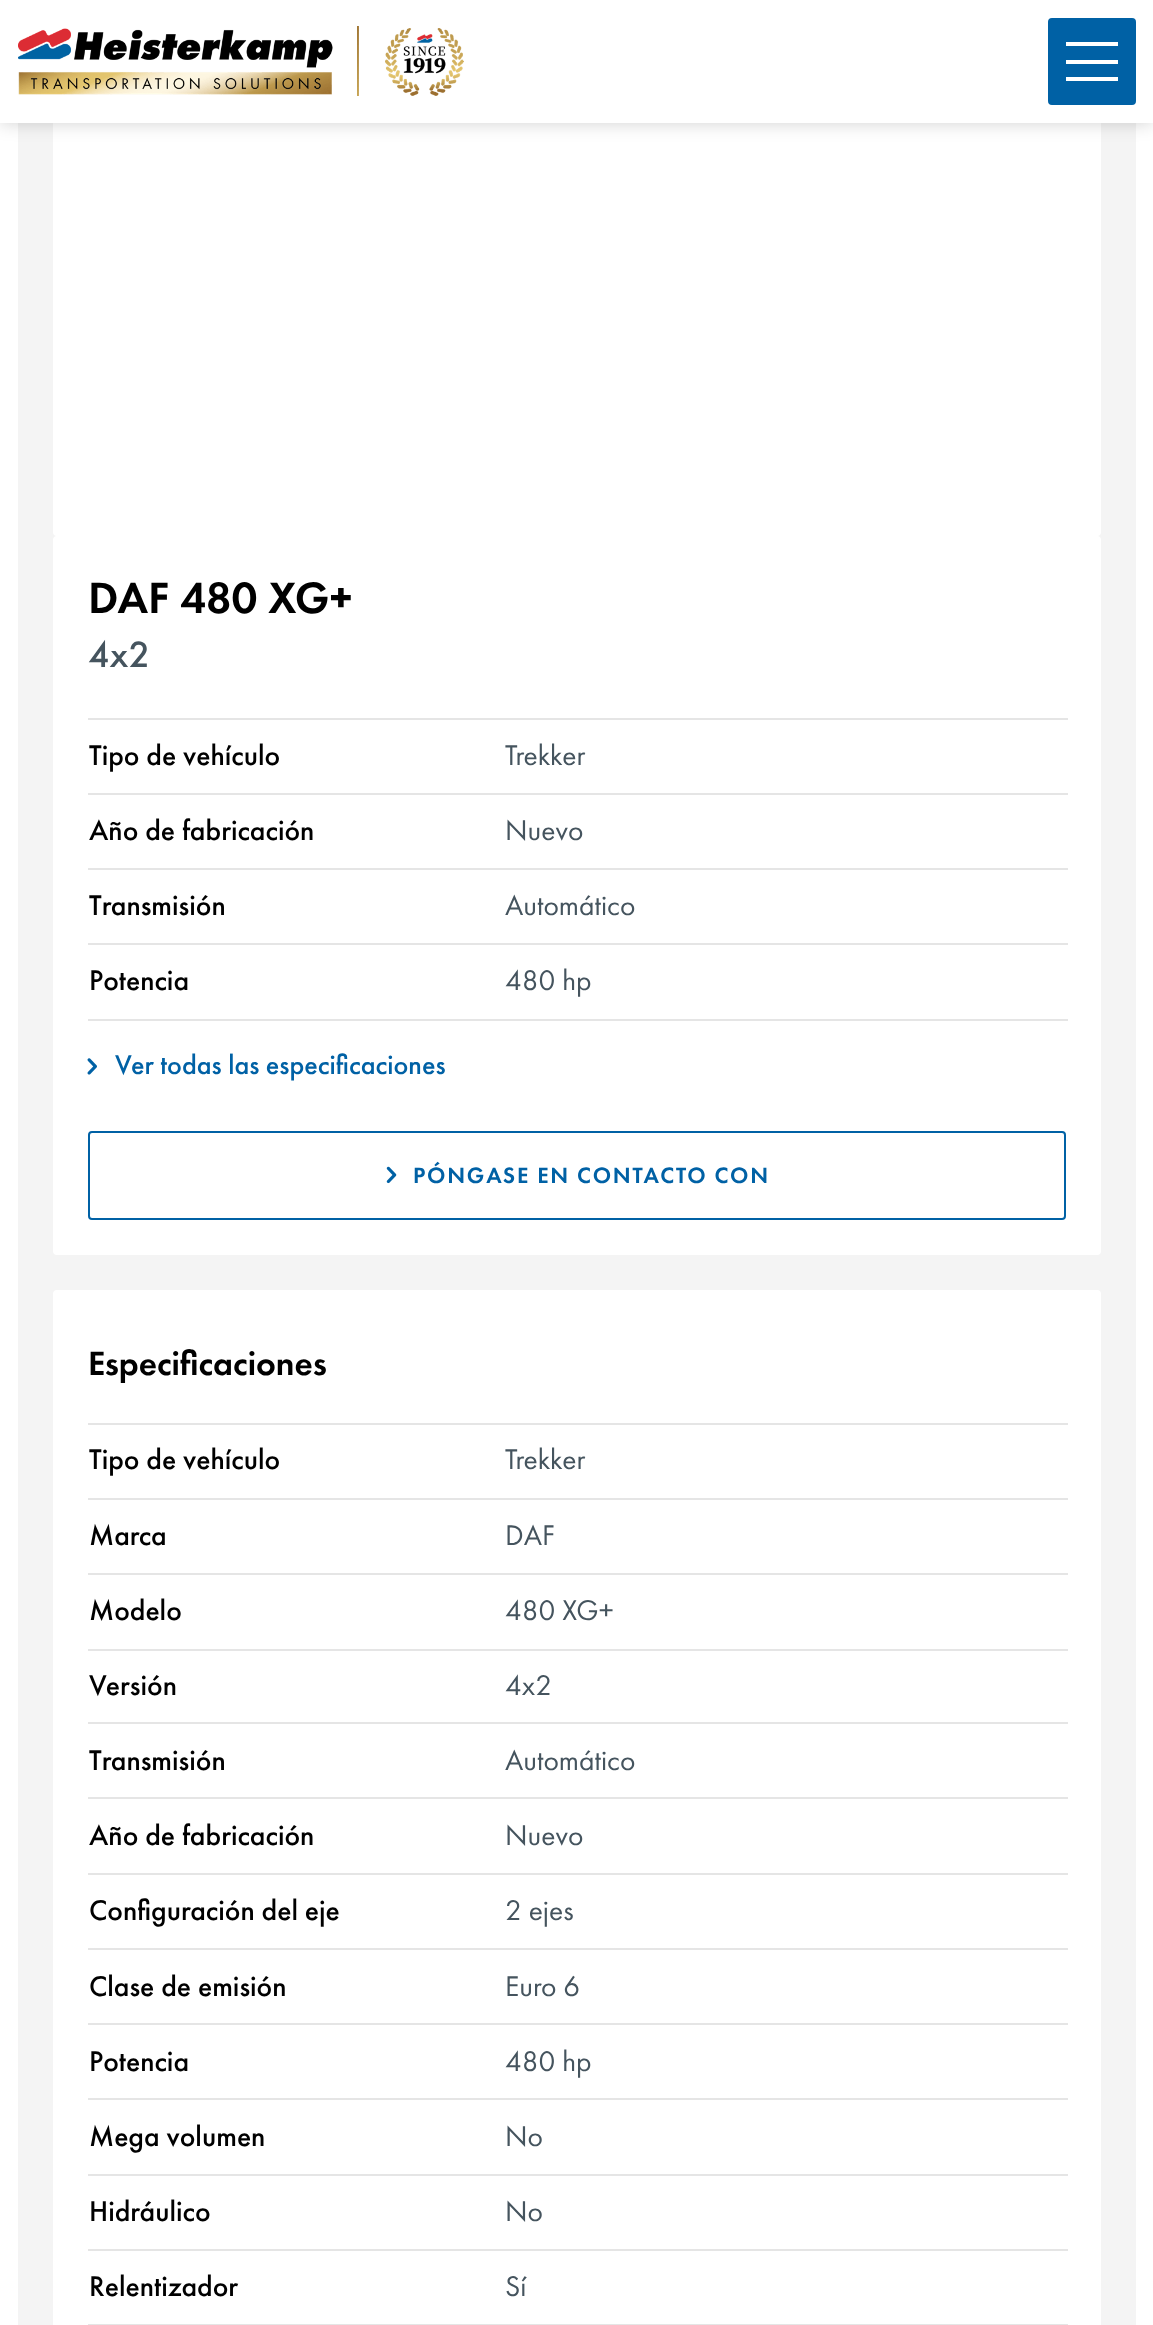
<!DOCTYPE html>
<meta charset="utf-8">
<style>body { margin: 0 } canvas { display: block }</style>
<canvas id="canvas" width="1153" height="2325"></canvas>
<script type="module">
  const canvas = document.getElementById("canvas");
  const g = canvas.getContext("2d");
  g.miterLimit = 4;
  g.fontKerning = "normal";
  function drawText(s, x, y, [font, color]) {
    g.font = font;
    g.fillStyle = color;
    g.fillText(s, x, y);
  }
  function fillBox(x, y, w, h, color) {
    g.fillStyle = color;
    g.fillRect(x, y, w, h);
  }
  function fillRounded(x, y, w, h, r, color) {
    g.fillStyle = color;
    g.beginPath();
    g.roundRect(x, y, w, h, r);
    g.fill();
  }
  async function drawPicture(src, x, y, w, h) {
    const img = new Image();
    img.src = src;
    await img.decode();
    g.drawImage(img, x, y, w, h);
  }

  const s1 = ["500 45.5px Futura PT", "#000000"];
  const s2 = ["500 38px 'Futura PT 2'", "#45545E"];
  const s3 = ["500 29.5px 'Futura PT 2'", "#000000"];
  const s4 = ["29.5px Futura PT", "#45545E"];
  const s5 = ["500 28px 'Futura PT 2'", "#0061A5"];
  const s6 = ["500 23px Futura PT", "#0061A5"];
  const s7 = ["500 35px Futura PT", "#000000"];

  fillBox(0, 0, 1153, 2325, "#FFFFFF");
  fillBox(18, 123, 1118, 2202, "#F4F4F4");
  fillRounded(53, -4, 1048, 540, 4, "#FFFFFF");
  g.fillStyle = "rgba(0, 0, 0, 0.18)";
  g.filter = "blur(9px)";
  g.beginPath();
  g.rect(0, 0, 1153, 123);
  g.fill();
  g.filter = "none";
  fillBox(0, 0, 1153, 123, "#FFFFFF");
  await drawPicture("pic1.png", 18, 26, 446, 70);
  g.fillStyle = "#0061A5";
  g.beginPath();
  g.roundRect(1049, 19, 86, 85, 3);
  g.fill();
  g.strokeStyle = "#0061A5";
  g.lineWidth = 2;
  g.stroke();
  fillBox(1066, 60, 52, 4, "#FFFFFF");
  fillBox(1066, 42, 52, 4, "#FFFFFF");
  fillBox(1066, 77, 52, 4, "#FFFFFF");
  fillRounded(53, 536, 1048, 719, 4, "#FFFFFF");
  drawText("DAF 480 XG+", 88, 613, s1);
  drawText("4x2", 88, 667, s2);
  fillBox(88, 718, 980, 2, "#E5E5E5");
  drawText("Tipo de vehículo", 89, 765, s3);
  drawText("Trekker", 505, 765, s4);
  fillBox(88, 793, 980, 2, "#E5E5E5");
  drawText("Año de fabricación", 89, 840, s3);
  drawText("Nuevo", 505, 840, s4);
  fillBox(88, 868, 980, 2, "#E5E5E5");
  drawText("Transmisión", 89, 915, s3);
  drawText("Automático", 505, 915, s4);
  fillBox(88, 943, 980, 2, "#E5E5E5");
  fillBox(88, 1019, 980, 2, "#E5E5E5");
  drawText("Potencia", 89, 990, s3);
  drawText("480 hp", 505, 990, s4);
  await drawPicture("pic2.png", 87, 1058, 10, 17);
  drawText("Ver todas las especificaciones", 115, 1074, s5);
  g.beginPath();
  g.roundRect(89, 1132, 976, 87, 3);
  g.stroke();
  await drawPicture("pic3.png", 386, 1166, 11, 18);
  g.letterSpacing = "1.75px";
  drawText("PÓNGASE EN CONTACTO CON", 413, 1183, s6);
  fillRounded(53, 1290, 1048, 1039, 4, "#FFFFFF");
  g.letterSpacing = "0px";
  drawText("Especificaciones", 88, 1375, s7);
  fillBox(88, 1423, 980, 2, "#E5E5E5");
  drawText("Tipo de vehículo", 89, 1469, s3);
  drawText("Trekker", 505, 1469, s4);
  fillBox(88, 1498, 980, 2, "#E5E5E5");
  drawText("Marca", 89, 1545, s3);
  drawText("DAF", 505, 1545, s4);
  fillBox(88, 1573, 980, 2, "#E5E5E5");
  drawText("Modelo", 89, 1620, s3);
  drawText("480 XG+", 505, 1620, s4);
  fillBox(88, 1649, 980, 2, "#E5E5E5");
  drawText("Versión", 89, 1695, s3);
  drawText("4x2", 505, 1695, s4);
  fillBox(88, 1722, 980, 2, "#E5E5E5");
  drawText("Transmisión", 89, 1770, s3);
  drawText("Automático", 505, 1770, s4);
  fillBox(88, 1797, 980, 2, "#E5E5E5");
  drawText("Año de fabricación", 89, 1845, s3);
  drawText("Nuevo", 505, 1845, s4);
  fillBox(88, 1873, 980, 2, "#E5E5E5");
  drawText("Configuración del eje", 89, 1920, s3);
  drawText("2 ejes", 505, 1920, s4);
  fillBox(88, 1948, 980, 2, "#E5E5E5");
  drawText("Clase de emisión", 89, 1996, s3);
  drawText("Euro 6", 505, 1996, s4);
  fillBox(88, 2023, 980, 2, "#E5E5E5");
  drawText("Potencia", 89, 2071, s3);
  drawText("480 hp", 505, 2071, s4);
  fillBox(88, 2098, 980, 2, "#E5E5E5");
  drawText("Mega volumen", 89, 2146, s3);
  drawText("No", 505, 2146, s4);
  fillBox(88, 2174, 980, 2, "#E5E5E5");
  drawText("Hidráulico", 89, 2221, s3);
  drawText("No", 505, 2221, s4);
  fillBox(88, 2249, 980, 2, "#E5E5E5");
  drawText("Relentizador", 89, 2296, s3);
  drawText("Sí", 505, 2296, s4);
  fillBox(88, 2324, 980, 1, "#E5E5E5");
</script>
